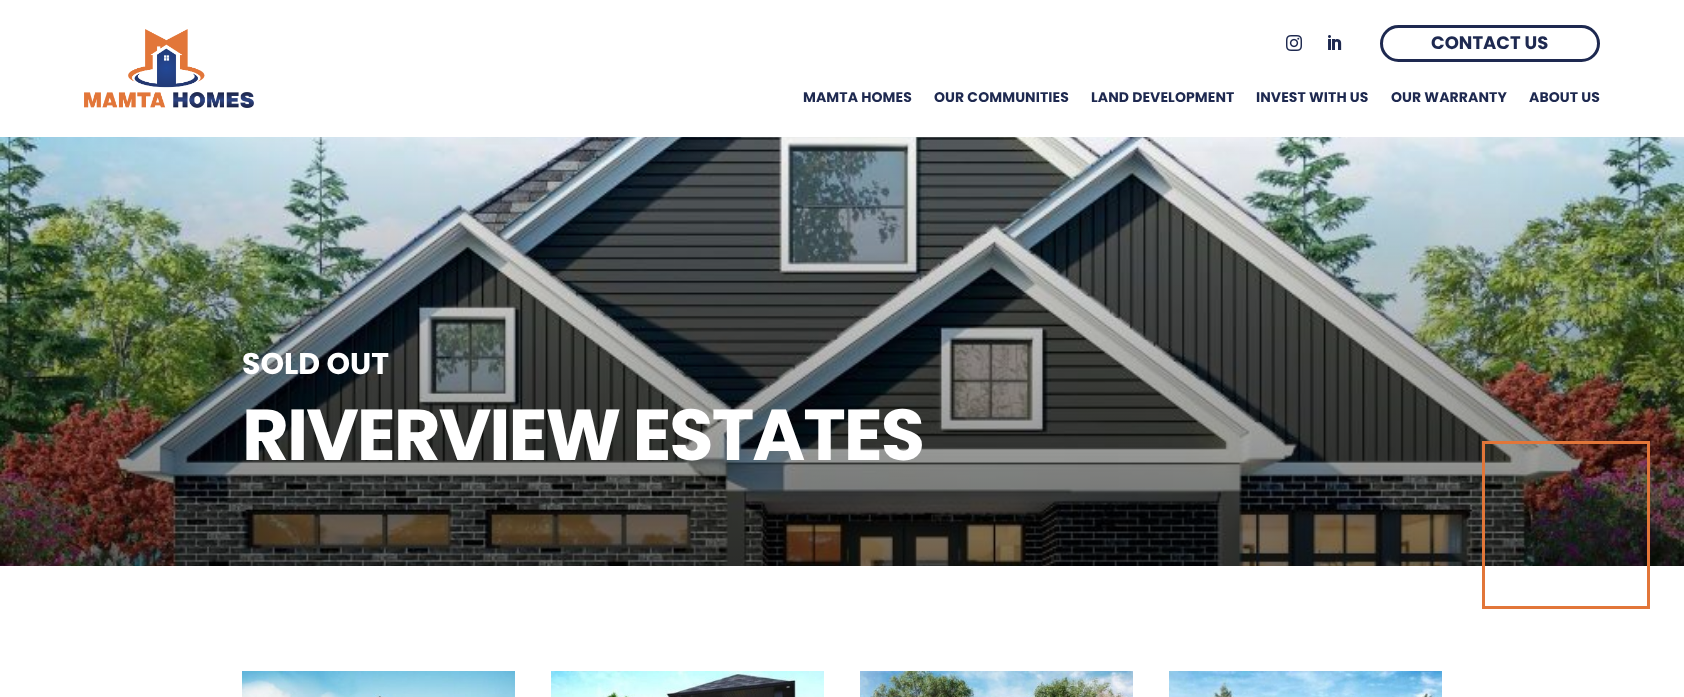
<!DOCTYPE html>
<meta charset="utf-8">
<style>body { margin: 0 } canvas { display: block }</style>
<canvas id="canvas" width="1684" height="697"></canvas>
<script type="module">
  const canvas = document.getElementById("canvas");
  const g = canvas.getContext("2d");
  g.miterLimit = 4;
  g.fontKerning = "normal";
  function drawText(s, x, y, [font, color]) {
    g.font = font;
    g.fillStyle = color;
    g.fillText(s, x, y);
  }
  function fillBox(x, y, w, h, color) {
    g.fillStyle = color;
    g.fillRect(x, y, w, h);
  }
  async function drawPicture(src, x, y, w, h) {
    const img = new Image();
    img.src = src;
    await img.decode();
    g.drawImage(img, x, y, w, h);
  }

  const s1 = ["bold 18px Poppins", "#1E2950"];
  const s2 = ["bold 14px Poppins", "#1E2950"];
  const s3 = ["bold 30px Poppins", "#FFFFFF"];
  const s4 = ["bold 72px Poppins", "#FFFFFF"];

  fillBox(0, 0, 1684, 697, "#FFFFFF");
  await drawPicture("pic1.png", 84, 29, 170, 79);
  await drawPicture("pic2.png", 1286, 35, 16, 16);
  await drawPicture("pic3.png", 1328, 35, 14, 15);
  g.beginPath();
  g.roundRect(1381.5, 26.5, 217, 34, 17);
  g.strokeStyle = "#1E2950";
  g.lineWidth = 3;
  g.stroke();
  drawText("CONTACT US", 1431, 49, s1);
  g.letterSpacing = "0.1px";
  drawText("MAMTA HOMES", 803, 102, s2);
  drawText("OUR COMMUNITIES", 934, 102, s2);
  drawText("LAND DEVELOPMENT", 1091, 102, s2);
  drawText("INVEST WITH US", 1256, 102, s2);
  drawText("OUR WARRANTY", 1391, 102, s2);
  drawText("ABOUT US", 1529, 102, s2);
  await drawPicture("pic4.png", 0, 137, 1684, 429);
  g.letterSpacing = "0px";
  drawText("SOLD OUT", 242, 374, s3);
  g.letterSpacing = "-2px";
  drawText("RIVERVIEW ESTATES", 242, 460, s4);
  g.strokeStyle = "#E27639";
  g.strokeRect(1483.5, 442.5, 165, 165);
  await drawPicture("pic5.png", 242, 671, 273, 26);
  await drawPicture("pic6.png", 551, 671, 273, 26);
  await drawPicture("pic7.png", 860, 671, 273, 26);
  await drawPicture("pic8.png", 1169, 671, 273, 26);
</script>
